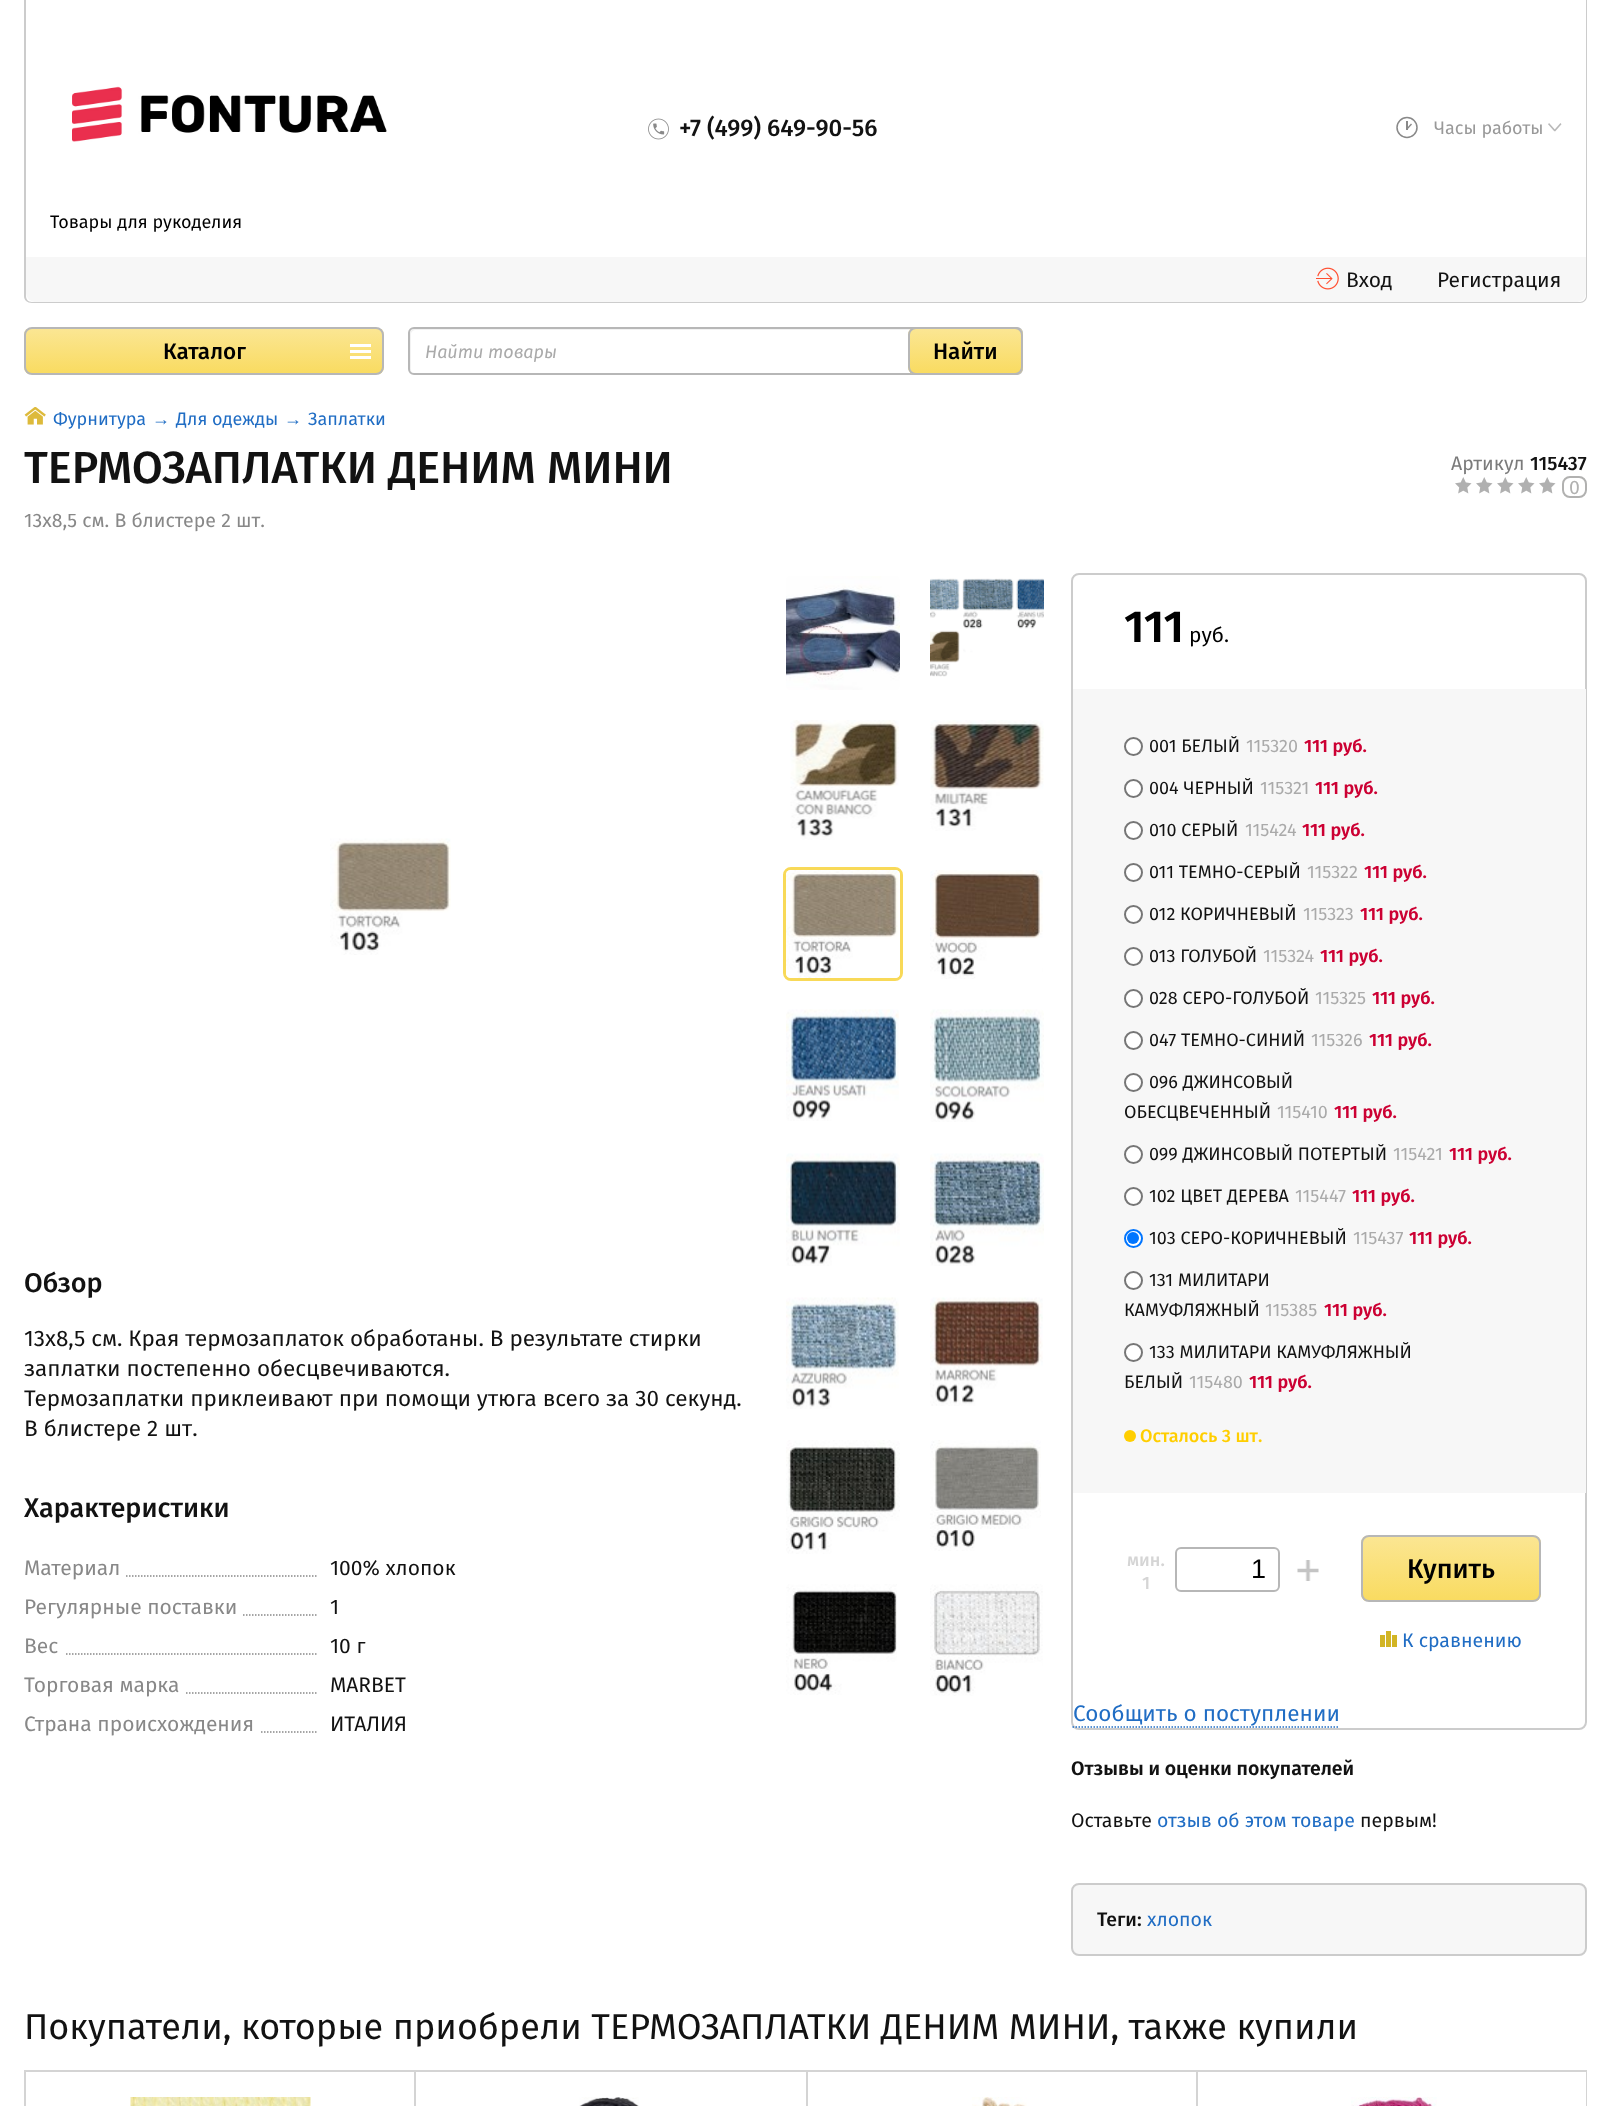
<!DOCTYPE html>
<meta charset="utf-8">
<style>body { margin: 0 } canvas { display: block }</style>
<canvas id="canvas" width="1611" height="2106"></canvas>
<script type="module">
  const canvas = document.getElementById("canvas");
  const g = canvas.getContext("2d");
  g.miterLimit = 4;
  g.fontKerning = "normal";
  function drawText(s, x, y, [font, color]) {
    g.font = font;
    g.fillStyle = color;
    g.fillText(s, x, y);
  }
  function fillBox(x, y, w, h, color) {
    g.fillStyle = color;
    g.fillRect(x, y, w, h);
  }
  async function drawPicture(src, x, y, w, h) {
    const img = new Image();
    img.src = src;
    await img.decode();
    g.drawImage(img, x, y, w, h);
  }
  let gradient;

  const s1 = ["500 24px Fira Sans", "#121212"];
  const s2 = ["18px Fira Sans", "#999999"];
  const s3 = ["18px Fira Sans", "#000000"];
  const s4 = ["21px Fira Sans", "#121212"];
  const s5 = ["500 22.5px Fira Sans", "#000000"];
  const s6 = ["italic 18px Fira Sans", "#AAAAAA"];
  const s7 = ["18px Fira Sans", "#206DC4"];
  const s8 = ["18px Liberation Sans", "#206DC4"];
  const s9 = ["500 45px Fira Sans", "#121212"];
  const s10 = ["19.5px Fira Sans", "#888888"];
  const s11 = ["19.5px Fira Sans", "#7B7B7B"];
  const s12 = ["500 19.5px Fira Sans", "#121212"];
  const s13 = ["19.5px Fira Sans", "#B1B1B0"];
  const s14 = ["500 27px Fira Sans", "#121212"];
  const s15 = ["22.5px Fira Sans", "#121212"];
  const s16 = ["21px Fira Sans", "#888888"];
  const s17 = ["600 45px Fira Sans", "#000000"];
  const s18 = ["21px Fira Sans", "#000000"];
  const s19 = ["18px Fira Sans", "#121212"];
  const s20 = ["18px Fira Sans", "#AAAAAA"];
  const s21 = ["600 18px Fira Sans", "#CC0033"];
  const s22 = ["500 18px Fira Sans", "#FFCE00"];
  const s23 = ["500 18px Fira Sans", "#D5D5D5"];
  const s24 = ["27px Liberation Sans", "#000000"];
  const s25 = ["500 27px Fira Sans", "#000000"];
  const s26 = ["19.5px Fira Sans", "#206DC4"];
  const s27 = ["22.5px Fira Sans", "#206DC4"];
  const s28 = ["600 19.5px Fira Sans", "#121212"];
  const s29 = ["19.5px Fira Sans", "#121212"];
  const s30 = ["36px Fira Sans", "#121212"];

  fillBox(0, 0, 1611, 2106, "#FFFFFF");
  g.fillStyle = "#CCCCCC";
  g.beginPath();
  g.moveTo(24, 0);
  g.lineTo(1587, 0);
  g.lineTo(1587, 296);
  g.bezierCurveTo(1587, 300, 1584, 303, 1580, 303);
  g.lineTo(32, 303);
  g.bezierCurveTo(27, 303, 24, 300, 24, 296);
  g.closePath();
  g.moveTo(26, 0);
  g.lineTo(1586, 0);
  g.lineTo(1586, 296);
  g.bezierCurveTo(1586, 299, 1583, 302, 1580, 302);
  g.lineTo(32, 302);
  g.bezierCurveTo(28, 302, 26, 299, 26, 296);
  g.closePath();
  g.fill("evenodd");
  await drawPicture("pic1.png", 648, 118, 21, 22);
  drawText("+7 (499) 649-90-56", 679, 136, s1);
  g.beginPath();
  g.arc(1407, 127.5, 10, 0, Math.PI * 2);
  g.strokeStyle = "#898989";
  g.lineWidth = 1.5;
  g.stroke();
  fillBox(1406, 121, 2, 9, "#898989");
  g.beginPath();
  g.moveTo(1407.5, 129.5);
  g.lineTo(1406.5, 128.5);
  g.lineTo(1411, 123.5);
  g.lineTo(1412, 124.5);
  g.closePath();
  g.fill();
  drawText("Часы работы", 1434, 134, s2);
  await drawPicture("pic2.png", 1548, 123, 14, 9);
  await drawPicture("pic3.png", 72, 86, 315, 56);
  drawText("Товары для рукоделия", 50, 228, s3);
  g.fillStyle = "#F7F7F7";
  g.beginPath();
  g.roundRect(26, 257, 1560, 45, [0, 0, 9, 9]);
  g.fill();
  await drawPicture("pic4.png", 1316, 267, 23, 23);
  drawText("Вход", 1346, 287, s4);
  drawText("Регистрация", 1437, 287, s4);
  g.save();
  g.beginPath();
  g.roundRect(24, 327, 360, 48, 8);
  g.clip();
  gradient = g.createLinearGradient(204, 329, 204, 374);
  gradient.addColorStop(0, "#FBE693");
  gradient.addColorStop(1, "#F9DB60");
  g.fillStyle = gradient;
  g.fillRect(24, 329, 360, 45);
  g.restore();
  g.beginPath();
  g.roundRect(25, 328, 358, 46, 7);
  g.strokeStyle = "#B7B7B7";
  g.lineWidth = 2;
  g.stroke();
  drawText("Каталог", 163, 359, s5);
  fillBox(350, 344, 21, 3, "#FFFFFF");
  fillBox(350, 350, 21, 3, "#FFFFFF");
  fillBox(350, 356, 21, 3, "#FFFFFF");
  g.fillStyle = "#F2F2F2";
  g.beginPath();
  g.moveTo(416, 330);
  g.lineTo(1018, 330);
  g.lineTo(1021, 331);
  g.bezierCurveTo(1020, 330, 1018, 329, 1017, 329);
  g.lineTo(415, 329);
  g.bezierCurveTo(412, 329, 410, 331, 410, 334);
  g.lineTo(410, 369);
  g.bezierCurveTo(410, 370, 411, 372, 412, 373);
  g.lineTo(411, 370);
  g.lineTo(411, 334);
  g.bezierCurveTo(411, 332, 413, 330, 416, 330);
  g.closePath();
  g.fill();
  g.beginPath();
  g.roundRect(409, 328, 613, 46, 5);
  g.stroke();
  drawText("Найти товары", 425, 358, s6);
  g.save();
  g.beginPath();
  g.roundRect(908, 327, 115, 48, 8);
  g.clip();
  gradient = g.createLinearGradient(965, 329, 965, 374);
  gradient.addColorStop(0, "#FBE693");
  gradient.addColorStop(1, "#F9DB60");
  g.fillStyle = gradient;
  g.fillRect(908, 329, 115, 45);
  g.restore();
  g.beginPath();
  g.roundRect(909, 328, 113, 46, 7);
  g.stroke();
  drawText("Найти", 933, 359, s5);
  await drawPicture("pic5.png", 24, 407, 22, 18);
  drawText("Фурнитура", 53, 425, s7);
  drawText("→", 152, 425, s8);
  drawText("Для одежды", 176, 425, s7);
  drawText("→", 284, 425, s8);
  drawText("Заплатки", 308, 425, s7);
  drawText("ТЕРМОЗАПЛАТКИ ДЕНИМ МИНИ", 24, 483, s9);
  drawText("13х8,5 см. В блистере 2 шт.", 24, 527, s10);
  drawText("Артикул", 1451, 470, s11);
  drawText("115437", 1530, 470, s12);
  await drawPicture("pic6.png", 1455, 477, 17, 17);
  await drawPicture("pic6.png", 1476, 477, 17, 17);
  await drawPicture("pic6.png", 1497, 477, 17, 17);
  await drawPicture("pic6.png", 1518, 477, 17, 17);
  await drawPicture("pic6.png", 1539, 477, 17, 17);
  g.beginPath();
  g.roundRect(1563, 477, 23, 20, 7);
  g.strokeStyle = "#B1B1B0";
  g.stroke();
  drawText("0", 1569, 494, s13);
  await drawPicture("pic7.png", 330, 838, 121, 117);
  drawText("Обзор", 24, 1292, s14);
  drawText("13х8,5 см. Края термозаплаток обработаны. В результате стирки", 24, 1346, s15);
  drawText("заплатки постепенно обесцвечиваются.", 24, 1376, s15);
  drawText("Термозаплатки приклеивают при помощи утюга всего за 30 секунд.", 24, 1406, s15);
  drawText("В блистере 2 шт.", 24, 1436, s15);
  drawText("Характеристики", 24, 1517, s14);
  g.beginPath();
  g.moveTo(24, 1576);
  g.lineTo(318, 1576);
  g.strokeStyle = "#888888";
  g.lineWidth = 1.5;
  g.setLineDash([1.5, 1.5]);
  g.stroke();
  fillBox(24, 1575, 101, 2, "#FFFFFF");
  drawText("Материал", 24, 1575, s16);
  drawText("100% хлопок", 330, 1575, s4);
  g.beginPath();
  g.moveTo(24, 1615);
  g.lineTo(318, 1615);
  g.stroke();
  fillBox(24, 1614, 218, 2, "#FFFFFF");
  drawText("Регулярные поставки", 24, 1614, s16);
  drawText("1", 330, 1614, s4);
  g.beginPath();
  g.moveTo(24, 1654);
  g.lineTo(318, 1654);
  g.stroke();
  fillBox(24, 1653, 41, 2, "#FFFFFF");
  drawText("Вес", 24, 1653, s16);
  drawText("10 г", 330, 1653, s4);
  g.beginPath();
  g.moveTo(24, 1693);
  g.lineTo(318, 1693);
  g.stroke();
  fillBox(24, 1692, 161, 2, "#FFFFFF");
  drawText("Торговая марка", 24, 1692, s16);
  drawText("MARBET", 330, 1692, s4);
  g.beginPath();
  g.moveTo(24, 1732);
  g.lineTo(318, 1732);
  g.stroke();
  fillBox(24, 1731, 236, 2, "#FFFFFF");
  drawText("Страна происхождения", 24, 1731, s16);
  drawText("ИТАЛИЯ", 330, 1731, s4);
  await drawPicture("pic8.png", 786, 576, 114, 114);
  await drawPicture("pic9.png", 930, 578, 114, 99);
  await drawPicture("pic10.png", 790, 720, 109, 120);
  await drawPicture("pic11.png", 930, 720, 114, 111);
  g.beginPath();
  g.roundRect(784.5, 868.5, 117, 111, 6.5);
  g.strokeStyle = "#F8D958";
  g.lineWidth = 3;
  g.setLineDash([]);
  g.stroke();
  await drawPicture("pic12.png", 786, 870, 114, 108);
  await drawPicture("pic13.png", 930, 870, 113, 109);
  await drawPicture("pic14.png", 786, 1009, 113, 112);
  await drawPicture("pic15.png", 930, 1009, 114, 113);
  await drawPicture("pic16.png", 786, 1153, 114, 113);
  await drawPicture("pic17.png", 930, 1153, 114, 113);
  await drawPicture("pic18.png", 786, 1297, 113, 112);
  await drawPicture("pic19.png", 930, 1297, 113, 109);
  await drawPicture("pic20.png", 786, 1440, 114, 114);
  await drawPicture("pic21.png", 930, 1440, 111, 111);
  await drawPicture("pic22.png", 786, 1584, 111, 111);
  await drawPicture("pic23.png", 930, 1584, 113, 112);
  g.beginPath();
  g.roundRect(1072, 574, 514, 1155, 7);
  g.strokeStyle = "#CCCCCC";
  g.lineWidth = 2;
  g.stroke();
  drawText("111", 1124, 642, s17);
  drawText("руб.", 1189, 642, s18);
  fillBox(1073, 689, 513, 804, "#F7F7F7");
  g.fillStyle = "#FFFFFF";
  g.beginPath();
  g.arc(1133.5, 746.5, 8.5, 0, Math.PI * 2);
  g.fill();
  g.strokeStyle = "#767676";
  g.stroke();
  drawText("001 БЕЛЫЙ", 1149, 752, s19);
  drawText("115320", 1246, 752, s20);
  drawText("111 руб.", 1304, 752, s21);
  g.fillStyle = "#FFFFFF";
  g.beginPath();
  g.arc(1133.5, 788.5, 8.5, 0, Math.PI * 2);
  g.fill();
  g.stroke();
  drawText("004 ЧЕРНЫЙ", 1149, 794, s19);
  drawText("115321", 1260, 794, s20);
  drawText("111 руб.", 1315, 794, s21);
  g.fillStyle = "#FFFFFF";
  g.beginPath();
  g.arc(1133.5, 830.5, 8.5, 0, Math.PI * 2);
  g.fill();
  g.stroke();
  drawText("010 СЕРЫЙ", 1149, 836, s19);
  drawText("115424", 1245, 836, s20);
  drawText("111 руб.", 1302, 836, s21);
  g.fillStyle = "#FFFFFF";
  g.beginPath();
  g.arc(1133.5, 872.5, 8.5, 0, Math.PI * 2);
  g.fill();
  g.stroke();
  drawText("011 ТЕМНО-СЕРЫЙ", 1149, 878, s19);
  drawText("115322", 1307, 878, s20);
  drawText("111 руб.", 1364, 878, s21);
  g.fillStyle = "#FFFFFF";
  g.beginPath();
  g.arc(1133.5, 914.5, 8.5, 0, Math.PI * 2);
  g.fill();
  g.stroke();
  drawText("012 КОРИЧНЕВЫЙ", 1149, 920, s19);
  drawText("115323", 1303, 920, s20);
  drawText("111 руб.", 1360, 920, s21);
  g.fillStyle = "#FFFFFF";
  g.beginPath();
  g.arc(1133.5, 956.5, 8.5, 0, Math.PI * 2);
  g.fill();
  g.stroke();
  drawText("013 ГОЛУБОЙ", 1149, 962, s19);
  drawText("115324", 1263, 962, s20);
  drawText("111 руб.", 1320, 962, s21);
  g.fillStyle = "#FFFFFF";
  g.beginPath();
  g.arc(1133.5, 998.5, 8.5, 0, Math.PI * 2);
  g.fill();
  g.stroke();
  drawText("028 СЕРО-ГОЛУБОЙ", 1149, 1004, s19);
  drawText("115325", 1315, 1004, s20);
  drawText("111 руб.", 1372, 1004, s21);
  g.fillStyle = "#FFFFFF";
  g.beginPath();
  g.arc(1133.5, 1040.5, 8.5, 0, Math.PI * 2);
  g.fill();
  g.stroke();
  drawText("047 ТЕМНО-СИНИЙ", 1149, 1046, s19);
  drawText("115326", 1311, 1046, s20);
  drawText("111 руб.", 1369, 1046, s21);
  g.fillStyle = "#FFFFFF";
  g.beginPath();
  g.arc(1133.5, 1082.5, 8.5, 0, Math.PI * 2);
  g.fill();
  g.stroke();
  drawText("096 ДЖИНСОВЫЙ", 1149, 1088, s19);
  drawText("ОБЕСЦВЕЧЕННЫЙ", 1124, 1118, s19);
  drawText("115410", 1277, 1118, s20);
  drawText("111 руб.", 1334, 1118, s21);
  g.fillStyle = "#FFFFFF";
  g.beginPath();
  g.arc(1133.5, 1154.5, 8.5, 0, Math.PI * 2);
  g.fill();
  g.stroke();
  drawText("099 ДЖИНСОВЫЙ ПОТЕРТЫЙ", 1149, 1160, s19);
  drawText("115421", 1393, 1160, s20);
  drawText("111 руб.", 1449, 1160, s21);
  g.fillStyle = "#FFFFFF";
  g.beginPath();
  g.arc(1133.5, 1196.5, 8.5, 0, Math.PI * 2);
  g.fill();
  g.stroke();
  drawText("102 ЦВЕТ ДЕРЕВА", 1149, 1202, s19);
  drawText("115447", 1295, 1202, s20);
  drawText("111 руб.", 1352, 1202, s21);
  g.fillStyle = "#FFFFFF";
  g.beginPath();
  g.arc(1133.5, 1238.5, 8.5, 0, Math.PI * 2);
  g.fill();
  g.strokeStyle = "#0075FF";
  g.stroke();
  g.fillStyle = "#0075FF";
  g.beginPath();
  g.arc(1133, 1238, 6, 0, Math.PI * 2);
  g.fill();
  drawText("103 СЕРО-КОРИЧНЕВЫЙ", 1149, 1244, s19);
  drawText("115437", 1353, 1244, s20);
  drawText("111 руб.", 1409, 1244, s21);
  g.fillStyle = "#FFFFFF";
  g.beginPath();
  g.arc(1133.5, 1280.5, 8.5, 0, Math.PI * 2);
  g.fill();
  g.strokeStyle = "#767676";
  g.stroke();
  drawText("131 МИЛИТАРИ", 1149, 1286, s19);
  drawText("КАМУФЛЯЖНЫЙ", 1124, 1316, s19);
  drawText("115385", 1265, 1316, s20);
  drawText("111 руб.", 1324, 1316, s21);
  g.fillStyle = "#FFFFFF";
  g.beginPath();
  g.arc(1133.5, 1352.5, 8.5, 0, Math.PI * 2);
  g.fill();
  g.stroke();
  drawText("133 МИЛИТАРИ КАМУФЛЯЖНЫЙ", 1149, 1358, s19);
  drawText("БЕЛЫЙ", 1124, 1388, s19);
  drawText("115480", 1189, 1388, s20);
  drawText("111 руб.", 1249, 1388, s21);
  g.fillStyle = "#FFCE00";
  g.beginPath();
  g.arc(1130, 1436, 6, 0, Math.PI * 2);
  g.fill();
  drawText("Осталось 3 шт.", 1140, 1442, s22);
  drawText("мин.", 1127, 1566, s23);
  drawText("1", 1142, 1589, s23);
  g.beginPath();
  g.roundRect(1176, 1548, 103, 43, 5);
  g.strokeStyle = "#B7B7B7";
  g.stroke();
  drawText("1", 1251, 1578, s24);
  await drawPicture("pic24.png", 1297, 1560, 22, 21);
  g.save();
  g.beginPath();
  g.roundRect(1361, 1535, 180, 67, 8);
  g.clip();
  gradient = g.createLinearGradient(1451, 1536, 1451, 1601);
  gradient.addColorStop(0, "#FBE693");
  gradient.addColorStop(1, "#F9DB60");
  g.fillStyle = gradient;
  g.fillRect(1361, 1536, 180, 65);
  g.restore();
  g.beginPath();
  g.roundRect(1362, 1536, 178, 65, 7);
  g.stroke();
  drawText("Купить", 1407, 1578, s25);
  await drawPicture("pic25.png", 1380, 1631, 17, 16);
  drawText("К сравнению", 1402, 1647, s26);
  drawText("Сообщить о поступлении", 1073, 1721, s27);
  g.beginPath();
  g.moveTo(1072.5, 1727);
  g.lineTo(1339.5, 1727);
  g.strokeStyle = "#206DC4";
  g.lineWidth = 1.5;
  g.setLineDash([1.5, 1.5]);
  g.stroke();
  drawText("Отзывы и оценки покупателей", 1071, 1775, s28);
  drawText("Оставьте", 1071, 1827, s29);
  drawText("отзыв об этом товаре", 1157, 1827, s26);
  drawText("первым!", 1360, 1827, s29);
  g.fillStyle = "#F7F7F7";
  g.beginPath();
  g.roundRect(1072, 1884, 514, 71, 7);
  g.fill();
  g.strokeStyle = "#CCCCCC";
  g.lineWidth = 2;
  g.setLineDash([]);
  g.stroke();
  drawText("Теги:", 1097, 1926, s12);
  drawText("хлопок", 1147, 1926, s26);
  drawText("Покупатели, которые приобрели ТЕРМОЗАПЛАТКИ ДЕНИМ МИНИ, также купили", 24, 2039, s30);
  fillBox(24, 2070, 2, 36, "#D4D4D4");
  fillBox(26, 2070, 781, 2, "#D4D4D4");
  fillBox(414, 2070, 2, 36, "#D4D4D4");
  await drawPicture("pic26.png", 130, 2097, 181, 9);
  fillBox(806, 2070, 2, 36, "#D4D4D4");
  await drawPicture("pic27.png", 579, 2097, 60, 9);
  fillBox(807, 2070, 390, 2, "#D4D4D4");
  fillBox(1196, 2070, 2, 36, "#D4D4D4");
  await drawPicture("pic28.png", 972, 2097, 55, 9);
  fillBox(1197, 2070, 390, 2, "#D4D4D4");
  fillBox(1586, 2070, 1, 36, "#D4D4D4");
  await drawPicture("pic29.png", 1351, 2097, 86, 9);
</script>
